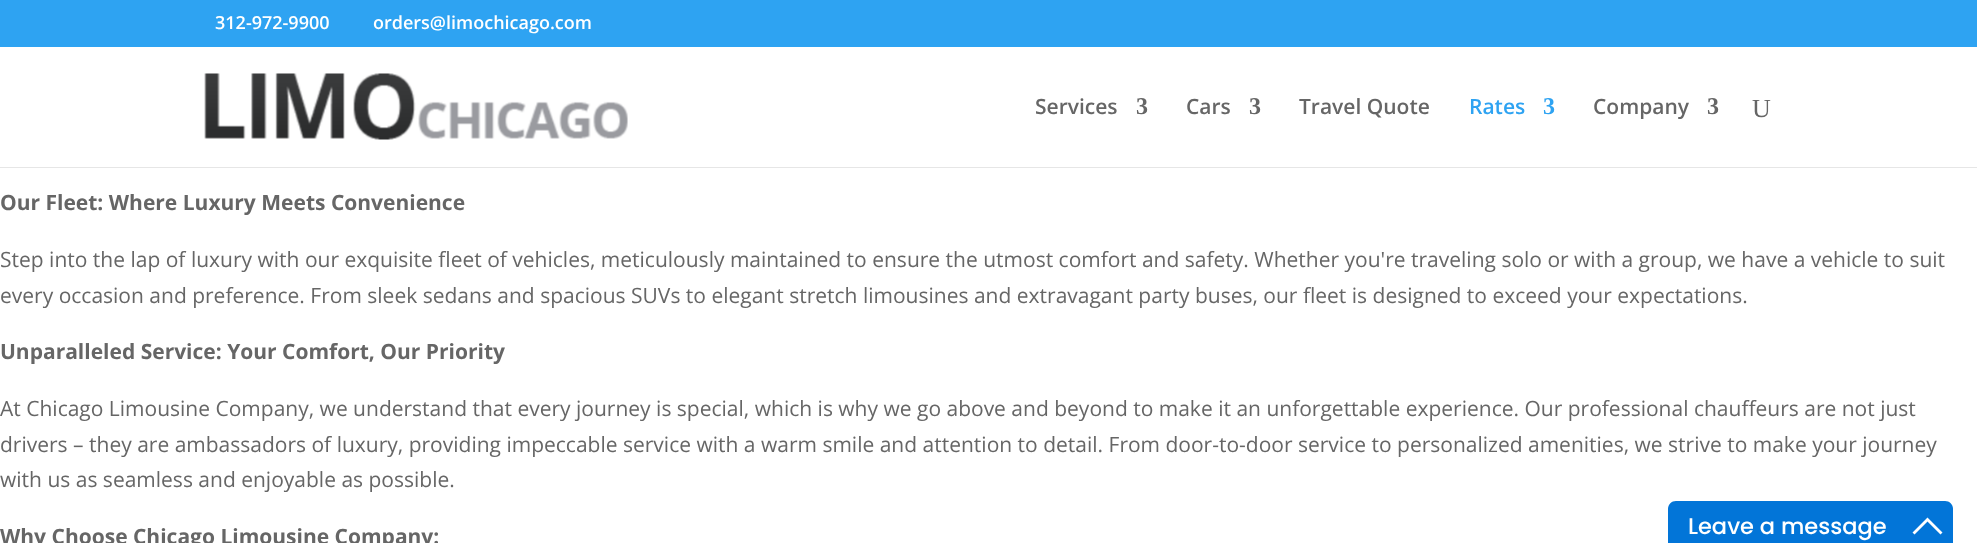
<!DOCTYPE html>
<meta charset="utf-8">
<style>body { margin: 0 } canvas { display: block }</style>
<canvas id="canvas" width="1977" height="543"></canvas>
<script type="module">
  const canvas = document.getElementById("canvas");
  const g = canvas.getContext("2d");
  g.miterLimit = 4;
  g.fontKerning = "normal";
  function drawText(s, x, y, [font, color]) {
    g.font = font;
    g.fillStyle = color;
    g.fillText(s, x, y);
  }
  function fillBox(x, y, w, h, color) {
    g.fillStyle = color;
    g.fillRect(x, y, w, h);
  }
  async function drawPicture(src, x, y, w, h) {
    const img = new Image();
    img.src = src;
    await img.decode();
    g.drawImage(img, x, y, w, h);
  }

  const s1 = ["600 18px Open Sans", "#FFFFFF"];
  const s2 = ["600 21px Open Sans", "#666666"];
  const s3 = ["bold 24px Liberation Serif", "#666666"];
  const s4 = ["600 21px Open Sans", "#2EA3F2"];
  const s5 = ["bold 24px Liberation Serif", "#2EA3F2"];
  const s6 = ["26px Liberation Serif", "#666666"];
  const s7 = ["bold 21px Open Sans", "#666666"];
  const s8 = ["21px Open Sans", "#666666"];
  const s9 = ["500 22.5px Poppins", "#FFFFFF"];

  fillBox(0, 0, 1977, 543, "#FFFFFF");
  fillBox(0, 0, 1977, 47, "#2EA3F2");
  drawText("312-972-9900", 215, 29, s1);
  drawText("orders@limochicago.com", 373, 29, s1);
  fillBox(0, 167, 1977, 1, "#E6E6E6");
  await drawPicture("pic1.png", 204, 73, 424, 67);
  drawText("Services", 1035, 114, s2);
  drawText("3", 1136, 114, s3);
  drawText("Cars", 1186, 114, s2);
  drawText("3", 1249, 114, s3);
  drawText("Travel Quote", 1299, 114, s2);
  drawText("Rates", 1469, 114, s4);
  drawText("3", 1543, 114, s5);
  drawText("Company", 1593, 114, s2);
  drawText("3", 1707, 114, s3);
  drawText("U", 1752, 117, s6);
  drawText("Our Fleet: Where Luxury Meets Convenience", 0, 210, s7);
  drawText("Step into the lap of luxury with our exquisite fleet of vehicles, meticulously maintained to ensure the utmost comfort and safety. Whether you're traveling solo or with a group, we have a vehicle to suit", 0, 267, s8);
  drawText("every occasion and preference. From sleek sedans and spacious SUVs to elegant stretch limousines and extravagant party buses, our fleet is designed to exceed your expectations.", 0, 303, s8);
  drawText("Unparalleled Service: Your Comfort, Our Priority", 0, 359, s7);
  drawText("At Chicago Limousine Company, we understand that every journey is special, which is why we go above and beyond to make it an unforgettable experience. Our professional chauffeurs are not just", 0, 416, s8);
  drawText("drivers – they are ambassadors of luxury, providing impeccable service with a warm smile and attention to detail. From door-to-door service to personalized amenities, we strive to make your journey", 0, 452, s8);
  drawText("with us as seamless and enjoyable as possible.", 0, 487, s8);
  drawText("Why Choose Chicago Limousine Company:", 0, 544, s7);
  g.fillStyle = "#0275D8";
  g.beginPath();
  g.moveTo(1676, 501);
  g.lineTo(1945, 501);
  g.bezierCurveTo(1949.5, 501, 1953, 504.5, 1953, 509);
  g.lineTo(1953, 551);
  g.lineTo(1668, 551);
  g.lineTo(1668, 509);
  g.bezierCurveTo(1668, 504.5, 1671.5, 501, 1676, 501);
  g.closePath();
  g.fill();
  drawText("Leave a message", 1688, 534, s9);
  g.beginPath();
  g.moveTo(1927.5, 517.5);
  g.lineTo(1942.5, 532.5);
  g.lineTo(1940.5, 534.5);
  g.lineTo(1927.5, 521.5);
  g.lineTo(1914.5, 534.5);
  g.lineTo(1912.5, 532.5);
  g.closePath();
  g.fill();
</script>
